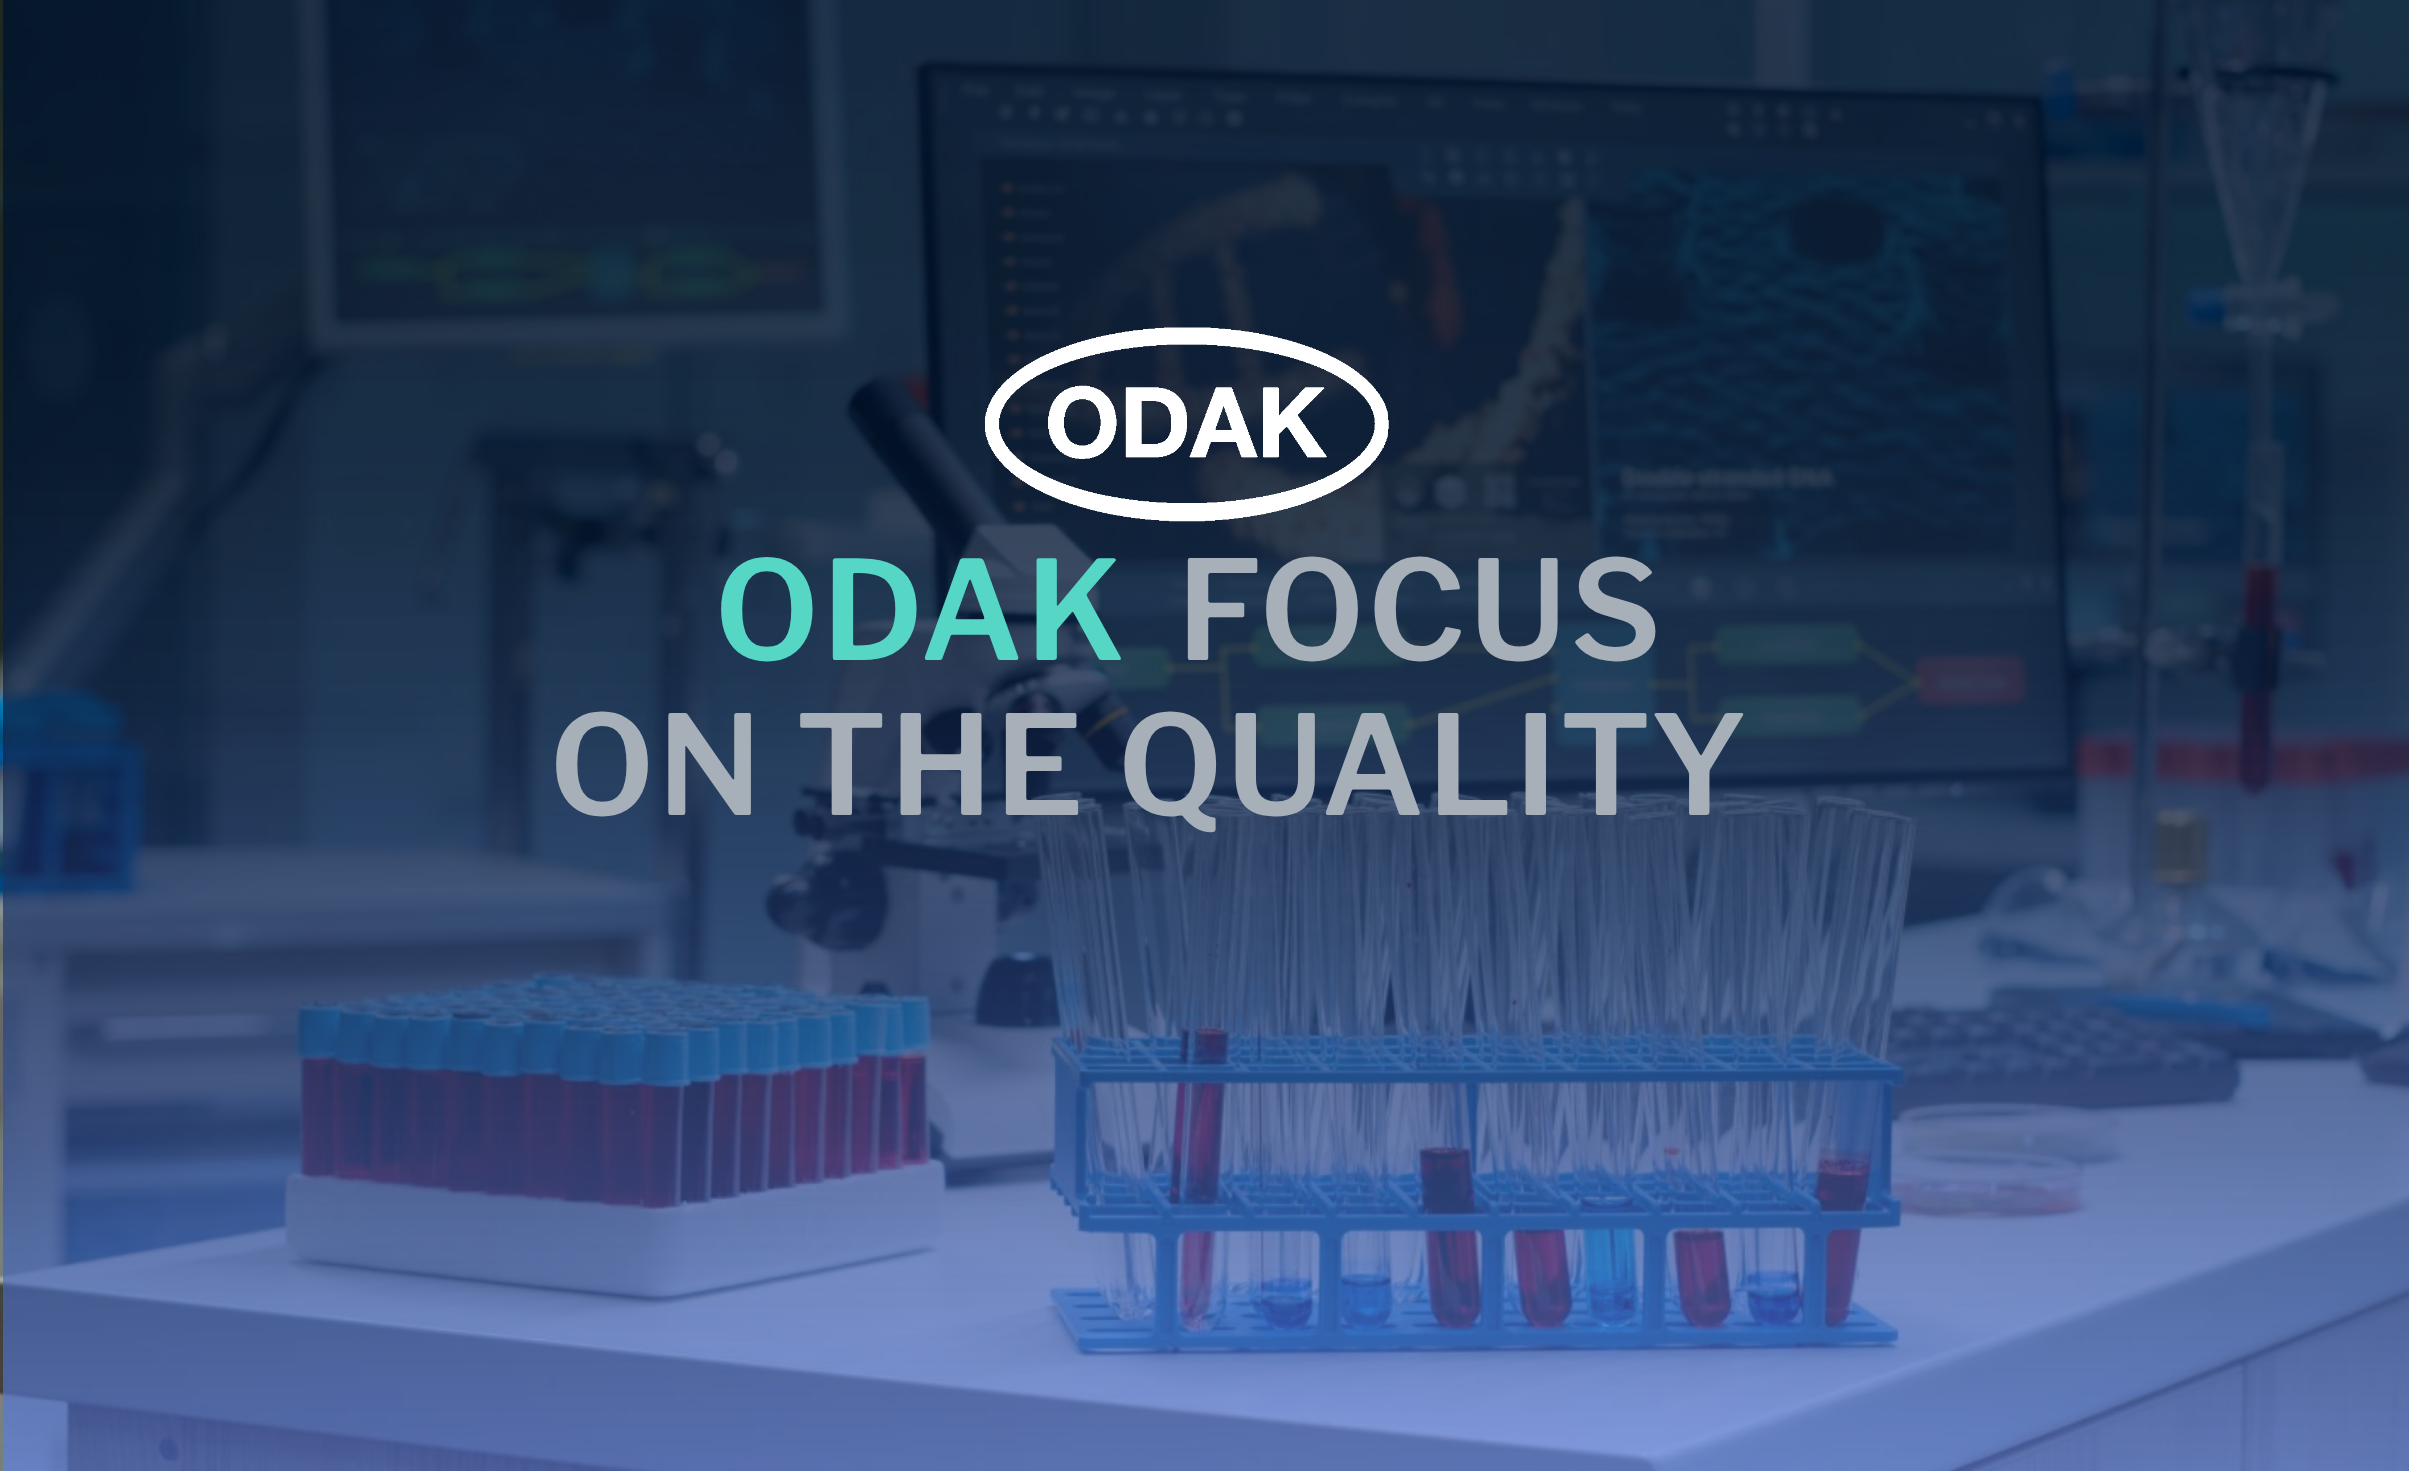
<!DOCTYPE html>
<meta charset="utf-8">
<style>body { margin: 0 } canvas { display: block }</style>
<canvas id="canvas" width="2409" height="1471"></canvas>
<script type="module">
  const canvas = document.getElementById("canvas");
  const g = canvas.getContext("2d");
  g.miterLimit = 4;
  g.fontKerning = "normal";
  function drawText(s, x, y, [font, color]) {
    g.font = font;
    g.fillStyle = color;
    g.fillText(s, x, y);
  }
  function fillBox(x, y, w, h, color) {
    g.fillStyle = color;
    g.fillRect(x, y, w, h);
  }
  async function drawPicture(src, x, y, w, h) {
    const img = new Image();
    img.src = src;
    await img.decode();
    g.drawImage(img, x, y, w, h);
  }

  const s1 = ["100 137px Libre Franklin", "#56D6C4"];
  const s2 = ["100 137.5px Libre Franklin", "#A7B0B9"];

  fillBox(0, 0, 2409, 1471, "#FFFFFF");
  await drawPicture("pic1.png", 0, 0, 2409, 1471);
  await drawPicture("pic2.png", 985, 327, 404, 195);
  g.letterSpacing = "2.5px";
  drawText("ODAK", 714, 660, s1);
  drawText("FOCUS", 1177, 660, s2);
  drawText("ON THE QUALITY", 549, 815, s2);
</script>
